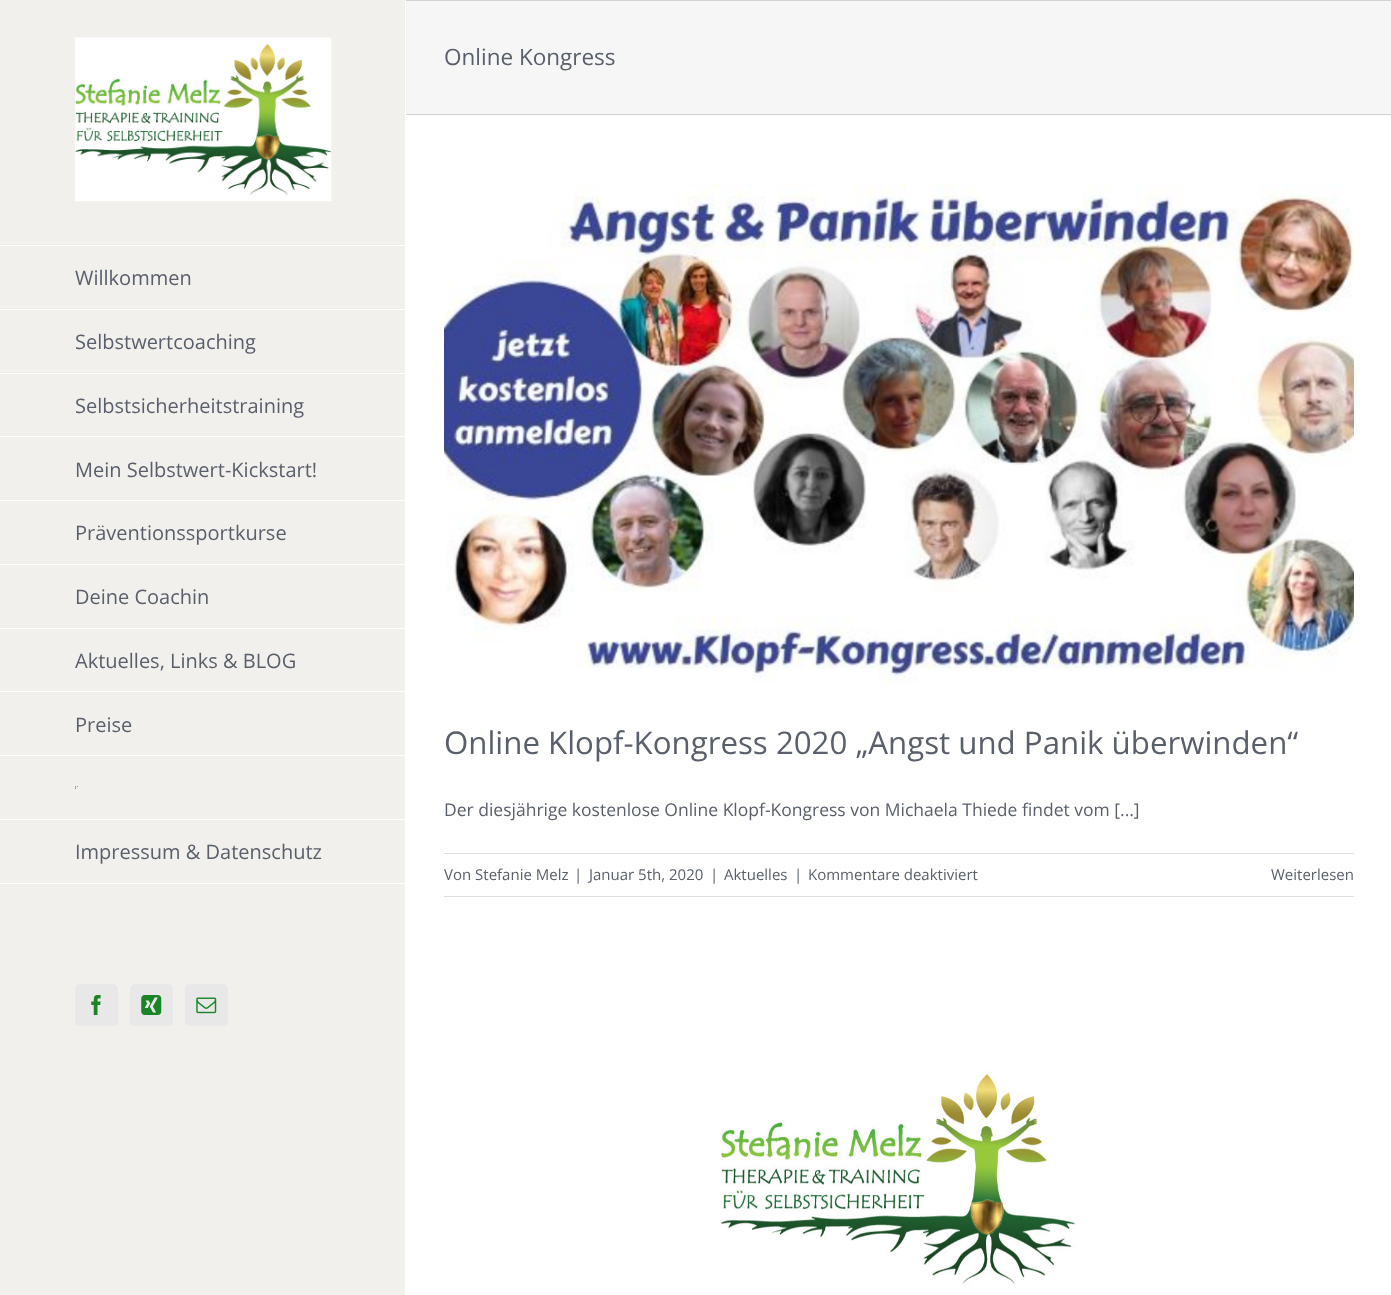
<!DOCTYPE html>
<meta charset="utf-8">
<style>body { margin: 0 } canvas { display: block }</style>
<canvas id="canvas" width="1391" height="1295"></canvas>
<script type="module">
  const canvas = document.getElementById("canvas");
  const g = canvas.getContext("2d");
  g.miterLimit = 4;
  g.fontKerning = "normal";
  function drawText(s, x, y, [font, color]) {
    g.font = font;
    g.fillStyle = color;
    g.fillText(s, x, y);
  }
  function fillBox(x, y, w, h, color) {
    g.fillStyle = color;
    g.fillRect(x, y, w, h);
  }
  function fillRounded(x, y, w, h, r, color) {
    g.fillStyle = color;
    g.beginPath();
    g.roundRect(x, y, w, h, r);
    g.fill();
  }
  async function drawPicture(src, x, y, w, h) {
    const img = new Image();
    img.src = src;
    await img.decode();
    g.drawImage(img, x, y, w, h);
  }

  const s1 = ["22.5px Open Sans", "#595F6B"];
  const s2 = ["20px Open Sans", "#595F6B"];
  const s3 = ["31.25px Open Sans", "#595F6B"];
  const s4 = ["17.5px Open Sans", "#595F6B"];
  const s5 = ["15px Open Sans", "#595F6B"];

  fillBox(0, 0, 1391, 1295, "#FFFFFF");
  fillBox(406, 1, 985, 113, "#F6F6F6");
  fillBox(406, 0, 985, 1, "#D2D3D4");
  fillBox(406, 114, 985, 1, "#D2D3D4");
  drawText("Online Kongress", 444, 65, s1);
  fillBox(0, 0, 405, 1295, "#F1F0EC");
  await drawPicture("pic1.png", 75, 37, 257, 165);
  fillBox(0, 245, 406, 1, "#FFFFFF");
  fillBox(0, 309, 406, 1, "#FFFFFF");
  drawText("Willkommen", 75, 285, s2);
  fillBox(0, 373, 406, 1, "#FFFFFF");
  drawText("Selbstwertcoaching", 75, 349, s2);
  fillBox(0, 436, 406, 1, "#FFFFFF");
  drawText("Selbstsicherheitstraining", 75, 413, s2);
  fillBox(0, 500, 406, 1, "#FFFFFF");
  drawText("Mein Selbstwert-Kickstart!", 75, 477, s2);
  fillBox(0, 564, 406, 1, "#FFFFFF");
  drawText("Präventionssportkurse", 75, 540, s2);
  fillBox(0, 628, 406, 1, "#FFFFFF");
  drawText("Deine Coachin", 75, 604, s2);
  fillBox(0, 691, 406, 1, "#FFFFFF");
  drawText("Aktuelles, Links & BLOG", 75, 668, s2);
  fillBox(0, 755, 406, 1, "#FFFFFF");
  drawText("Preise", 75, 732, s2);
  fillBox(0, 819, 406, 1, "#FFFFFF");
  fillBox(75, 786, 3, 1, "#9F9F9F");
  fillBox(76, 786, 1, 3, "#EEEEEE");
  fillBox(75, 788, 3, 1, "#EEEEEE");
  fillBox(75, 786, 1, 3, "#9F9F9F");
  fillBox(0, 883, 406, 1, "#FFFFFF");
  drawText("Impressum & Datenschutz", 75, 859, s2);
  fillRounded(75, 984, 43, 42, 5, "#E8E8E8");
  await drawPicture("pic2.png", 91, 995, 10, 20);
  fillRounded(130, 984, 43, 42, 5, "#E8E8E8");
  await drawPicture("pic3.png", 141, 995, 21, 20);
  fillRounded(185, 984, 43, 42, 5, "#E8E8E8");
  await drawPicture("pic4.png", 196, 997, 21, 17);
  await drawPicture("pic5.png", 444, 184, 910, 500);
  drawText("Online Klopf-Kongress 2020 „Angst und Panik überwinden“", 444, 754, s3);
  drawText("Der diesjährige kostenlose Online Klopf-Kongress von Michaela Thiede findet vom [...]", 444, 816, s4);
  fillBox(444, 853, 910, 1, "#E0DEDE");
  fillBox(444, 896, 910, 1, "#E0DEDE");
  drawText("Von Stefanie Melz", 444, 880, s5);
  drawText("|", 574, 880, s5);
  drawText("Januar 5th, 2020", 589, 880, s5);
  drawText("|", 710, 880, s5);
  drawText("Aktuelles", 724, 880, s5);
  drawText("|", 794, 880, s5);
  drawText("Kommentare deaktiviert", 808, 880, s5);
  drawText("Weiterlesen", 1271, 880, s5);
  await drawPicture("pic6.png", 721, 1070, 355, 215);
</script>
